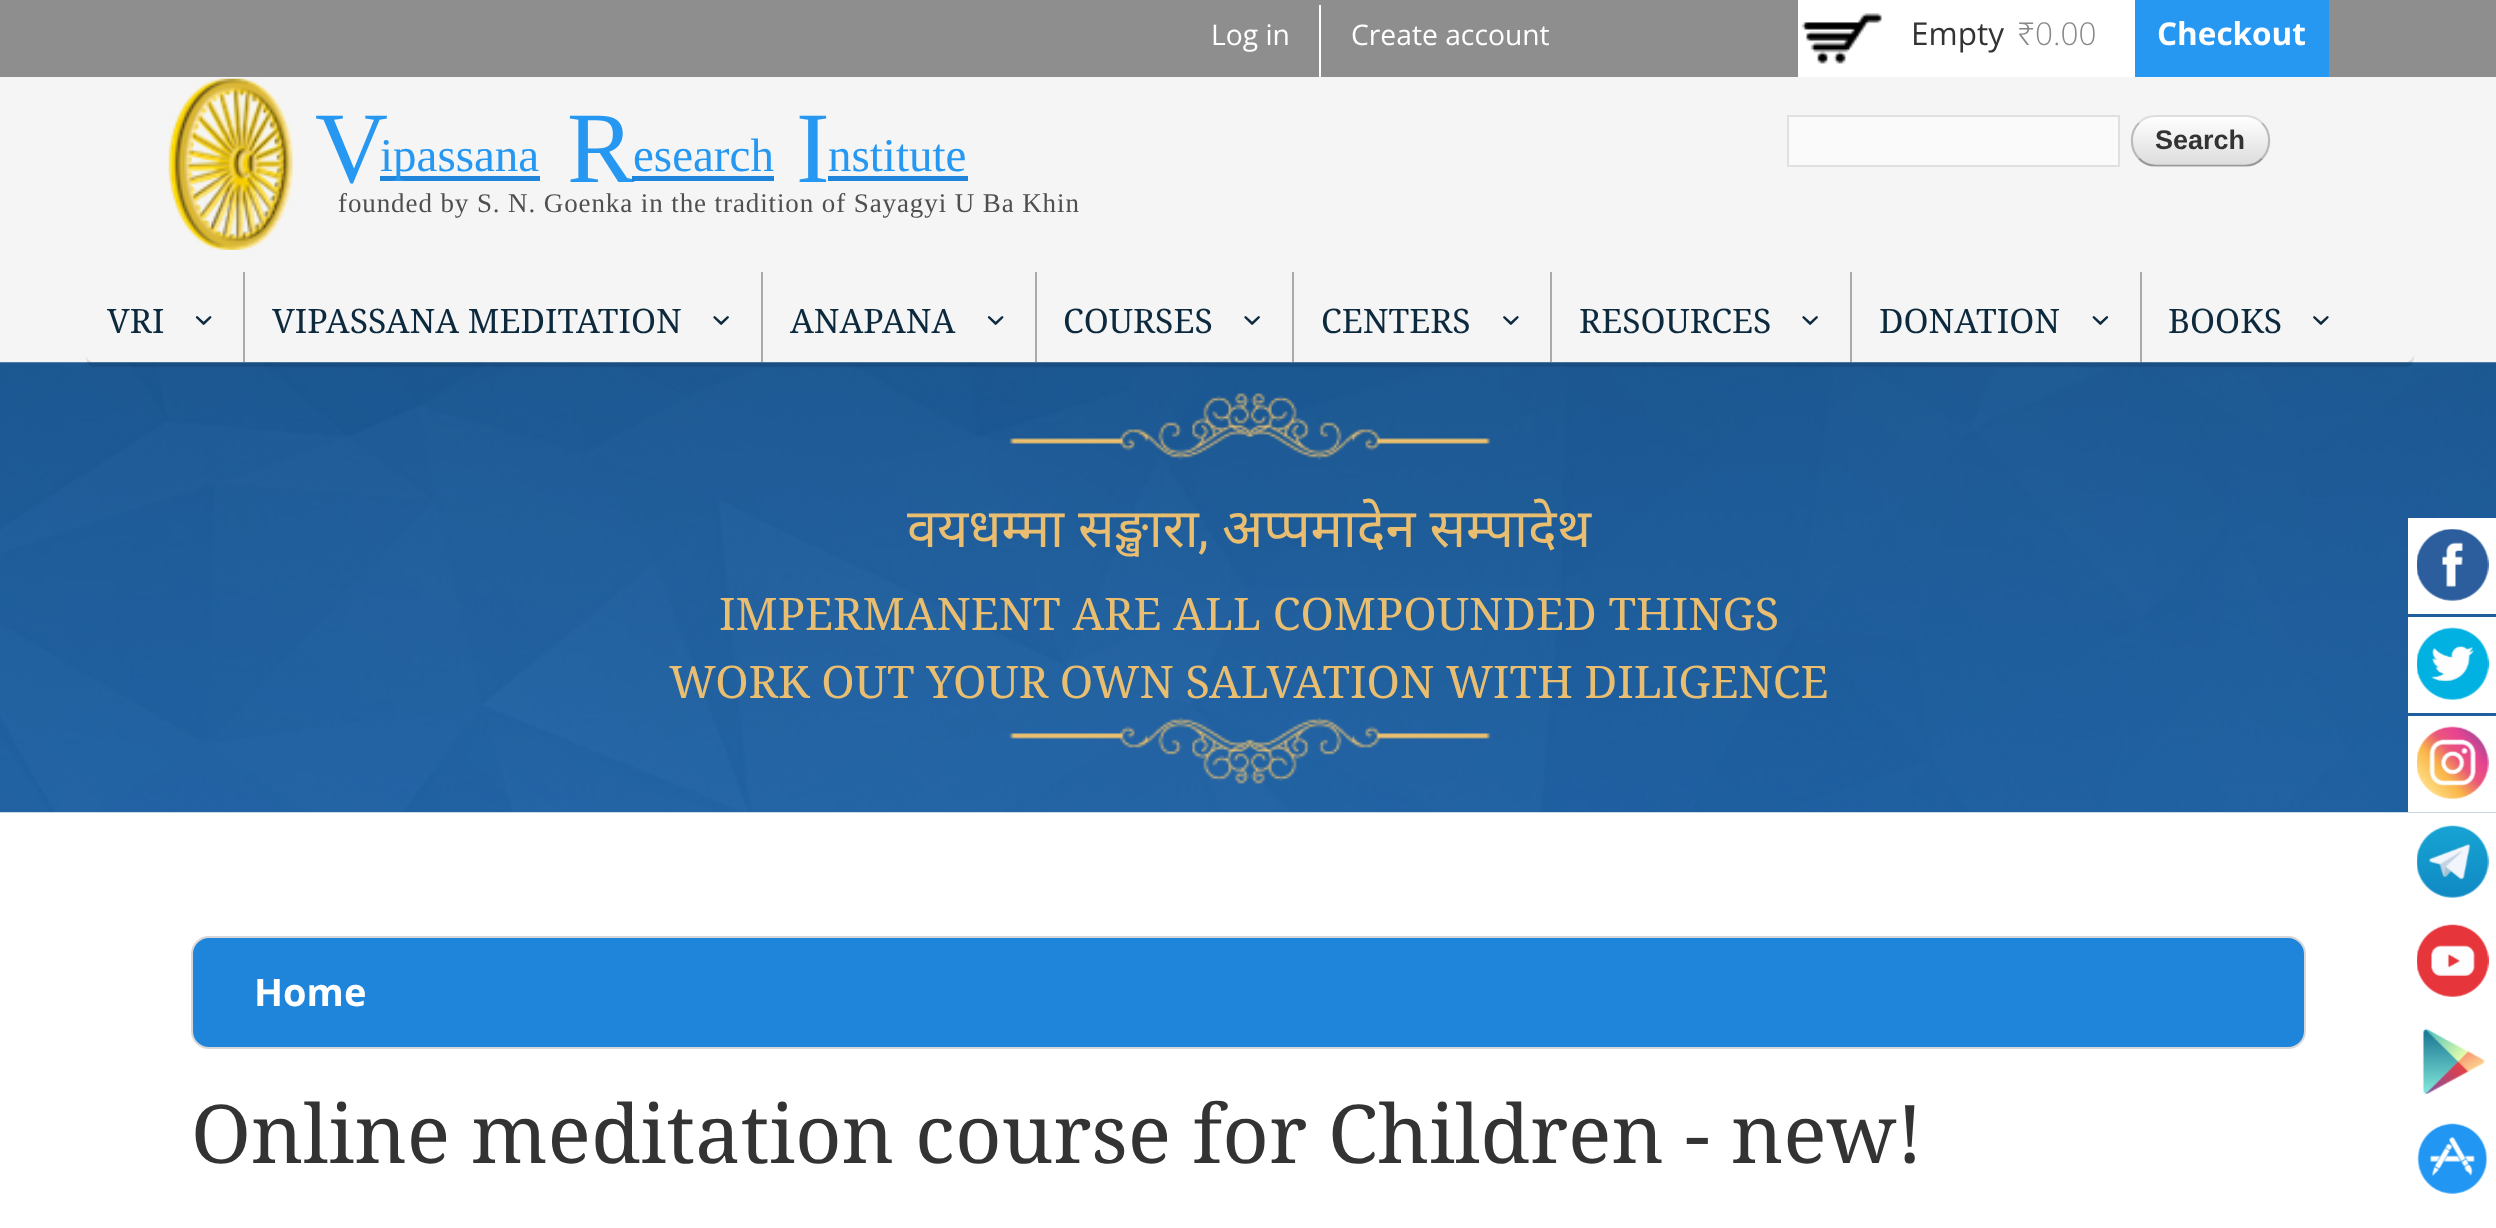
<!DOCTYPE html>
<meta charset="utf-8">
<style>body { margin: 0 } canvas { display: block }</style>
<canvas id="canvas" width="2496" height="1228"></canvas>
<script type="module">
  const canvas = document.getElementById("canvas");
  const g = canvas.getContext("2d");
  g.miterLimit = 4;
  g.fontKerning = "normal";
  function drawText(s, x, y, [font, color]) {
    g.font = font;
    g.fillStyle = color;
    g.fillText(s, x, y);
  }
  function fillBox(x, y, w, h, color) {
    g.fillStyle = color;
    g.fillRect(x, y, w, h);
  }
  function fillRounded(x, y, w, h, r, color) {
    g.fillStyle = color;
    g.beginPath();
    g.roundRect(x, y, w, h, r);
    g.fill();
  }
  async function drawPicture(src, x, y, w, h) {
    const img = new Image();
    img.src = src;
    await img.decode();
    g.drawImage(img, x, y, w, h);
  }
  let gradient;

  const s1 = ["28.25px Open Sans", "#FFFFFF"];
  const s2 = ["31.5px Open Sans", "#333333"];
  const s3 = ["300 31.5px Noto Sans", "#888888"];
  const s4 = ["300 31.5px Open Sans", "#888888"];
  const s5 = ["bold 31.5px Open Sans", "#FFFFFF"];
  const s6 = ["101px Liberation Serif", "#2698F2"];
  const s7 = ["47px Liberation Serif", "#2698F2"];
  const s8 = ["27px Liberation Serif", "#4F4F4F"];
  const s9 = ["bold 27px Liberation Sans", "#333333"];
  const s10 = ["33.75px Noto Serif", "#0C293D"];
  const s11 = ["54px Noto Sans", "#EABE70"];
  const s12 = ["54px Roboto", "#EABE70"];
  const s13 = ["45px Noto Serif", "#EABE70"];
  const s14 = ["bold 38px Open Sans", "#FFFFFF"];
  const s15 = ["81px Noto Serif", "#333333"];

  fillBox(0, 0, 2496, 1228, "#F5F5F5");
  fillBox(0, 0, 2496, 77, "#8E8E8E");
  fillBox(1319, 5, 2, 72, "#FFFFFF");
  drawText("Log in", 1211, 45, s1);
  drawText("Create account", 1351, 45, s1);
  fillBox(1798, 0, 337, 77, "#FFFFFF");
  await drawPicture("pic1.png", 1801, 13, 81, 51);
  drawText("Empty", 1911, 45, s2);
  drawText("₹", 2017, 45, s3);
  drawText("0.00", 2035, 45, s4);
  fillBox(2135, 0, 194, 77, "#2698F2");
  drawText("Checkout", 2157, 45, s5);
  await drawPicture("pic2.png", 168, 78, 125, 172);
  drawText("V", 315, 182, s6);
  fillBox(380, 176, 160, 5, "#1F85DA");
  drawText("ipassana", 380, 171, s7);
  drawText("R", 567, 182, s6);
  drawText("esearch", 633, 171, s7);
  fillBox(632, 176, 142, 5, "#1F85DA");
  drawText("I", 796, 182, s6);
  drawText("nstitute", 828, 171, s7);
  fillBox(828, 176, 140, 5, "#1F85DA");
  g.letterSpacing = "0.9px";
  drawText("founded by S. N. Goenka in the tradition of Sayagyi U Ba Khin", 338, 212, s8);
  g.fillStyle = "#FBFAFA";
  g.beginPath();
  g.rect(1788, 116, 331, 50);
  g.fill();
  g.strokeStyle = "#E0E0E0";
  g.lineWidth = 2;
  g.stroke();
  g.save();
  g.beginPath();
  g.roundRect(2131, 115, 139, 52, 25);
  g.clip();
  gradient = g.createLinearGradient(2133, 117, 2133, 164);
  gradient.addColorStop(0, "#FFFFFF");
  gradient.addColorStop(1, "#DDDDDD");
  g.fillStyle = gradient;
  g.fillRect(2131, 117, 139, 47);
  gradient = g.createLinearGradient(2133, 164, 2133, 212);
  gradient.addColorStop(0, "#FFFFFF");
  gradient.addColorStop(1, "#DDDDDD");
  g.fillStyle = gradient;
  g.fillRect(2144, 164, 113, 3);
  g.restore();
  g.beginPath();
  g.moveTo(2139, 123);
  g.bezierCurveTo(2143, 118.5, 2149, 116, 2155.5, 116);
  g.lineTo(2245.5, 116);
  g.bezierCurveTo(2252, 116, 2258, 118.5, 2262, 123);
  g.strokeStyle = "#DDDDDD";
  g.lineWidth = 2.2;
  g.stroke();
  g.beginPath();
  g.moveTo(2262, 123);
  g.bezierCurveTo(2271.5, 132, 2271.5, 149, 2262, 158.5);
  g.strokeStyle = "#BBBBBB";
  g.stroke();
  g.beginPath();
  g.moveTo(2262, 158.5);
  g.bezierCurveTo(2258, 163, 2252, 165.5, 2245.5, 165.5);
  g.lineTo(2155.5, 165.5);
  g.bezierCurveTo(2149, 165.5, 2143, 163, 2139, 158.5);
  g.strokeStyle = "#999999";
  g.stroke();
  g.beginPath();
  g.moveTo(2139, 158.5);
  g.bezierCurveTo(2129.5, 149, 2129.5, 132, 2139, 123);
  g.strokeStyle = "#BBBBBB";
  g.stroke();
  g.letterSpacing = "0px";
  drawText("Search", 2155, 149, s9);
  fillBox(0, 812, 2496, 416, "#FFFFFF");
  await drawPicture("pic7.png", 0, 362, 2496, 451);
  g.fillStyle = "rgba(0, 0, 0, 0.1)";
  g.beginPath();
  g.moveTo(86, 356);
  g.bezierCurveTo(86, 362, 89, 367, 95, 367);
  g.lineTo(2405, 367);
  g.bezierCurveTo(2412, 367, 2414, 361, 2414, 355);
  g.bezierCurveTo(2413, 359, 2409, 362, 2405, 362);
  g.lineTo(94, 362);
  g.bezierCurveTo(91, 362, 87, 360, 86, 356);
  g.closePath();
  g.fill();
  fillRounded(86, 272, 2328, 90, 9, "#F5F5F5");
  fillBox(243, 272, 2, 90, "#AAAAAA");
  drawText("VRI", 107, 333, s10);
  await drawPicture("pic3.png", 195, 316, 17, 9);
  fillBox(761, 272, 2, 90, "#AAAAAA");
  drawText("VIPASSANA MEDITATION", 272, 333, s10);
  await drawPicture("pic4.png", 713, 316, 16, 9);
  fillBox(1035, 272, 2, 90, "#AAAAAA");
  drawText("ANAPANA", 790, 333, s10);
  await drawPicture("pic3.png", 987, 316, 17, 9);
  fillBox(1292, 272, 2, 90, "#AAAAAA");
  drawText("COURSES", 1063, 333, s10);
  await drawPicture("pic4.png", 1244, 316, 16, 9);
  fillBox(1550, 272, 2, 90, "#AAAAAA");
  drawText("CENTERS", 1321, 333, s10);
  await drawPicture("pic5.png", 1503, 316, 16, 9);
  fillBox(1850, 272, 2, 90, "#AAAAAA");
  drawText("RESOURCES", 1579, 333, s10);
  await drawPicture("pic4.png", 1802, 316, 16, 9);
  fillBox(2140, 272, 2, 90, "#AAAAAA");
  drawText("DONATION", 1879, 333, s10);
  await drawPicture("pic6.png", 2092, 316, 17, 9);
  drawText("BOOKS", 2168, 333, s10);
  await drawPicture("pic5.png", 2313, 316, 16, 9);
  drawText("वयधम्मा सङ्खारा", 907, 547, s11);
  drawText(",", 1198, 547, s12);
  drawText("अप्पमादेन सम्पादेथ", 1222, 547, s11);
  drawText("IMPERMANENT ARE ALL COMPOUNDED THINGS", 719, 630, s13);
  drawText("WORK OUT YOUR OWN SALVATION WITH DILIGENCE", 669, 698, s13);
  g.fillStyle = "#1F85DA";
  g.beginPath();
  g.roundRect(192, 937, 2113, 111, 17);
  g.fill();
  g.strokeStyle = "#D7D7D7";
  g.lineWidth = 2;
  g.stroke();
  drawText("Home", 254, 1006, s14);
  drawText("Online meditation course for Children - new!", 191, 1163, s15);
  fillBox(2408, 518, 88, 96, "#FFFFFF");
  await drawPicture("pic8.png", 2417, 529, 72, 72);
  fillBox(2408, 617, 88, 96, "#FFFFFF");
  await drawPicture("pic9.png", 2417, 627, 72, 73);
  fillBox(2408, 716, 88, 96, "#FFFFFF");
  await drawPicture("pic10.png", 2417, 726, 72, 73);
  await drawPicture("pic11.png", 2417, 825, 72, 73);
  await drawPicture("pic12.png", 2417, 924, 72, 73);
  await drawPicture("pic13.png", 2422, 1028, 63, 66);
  await drawPicture("pic14.png", 2417, 1123, 70, 71);
</script>
